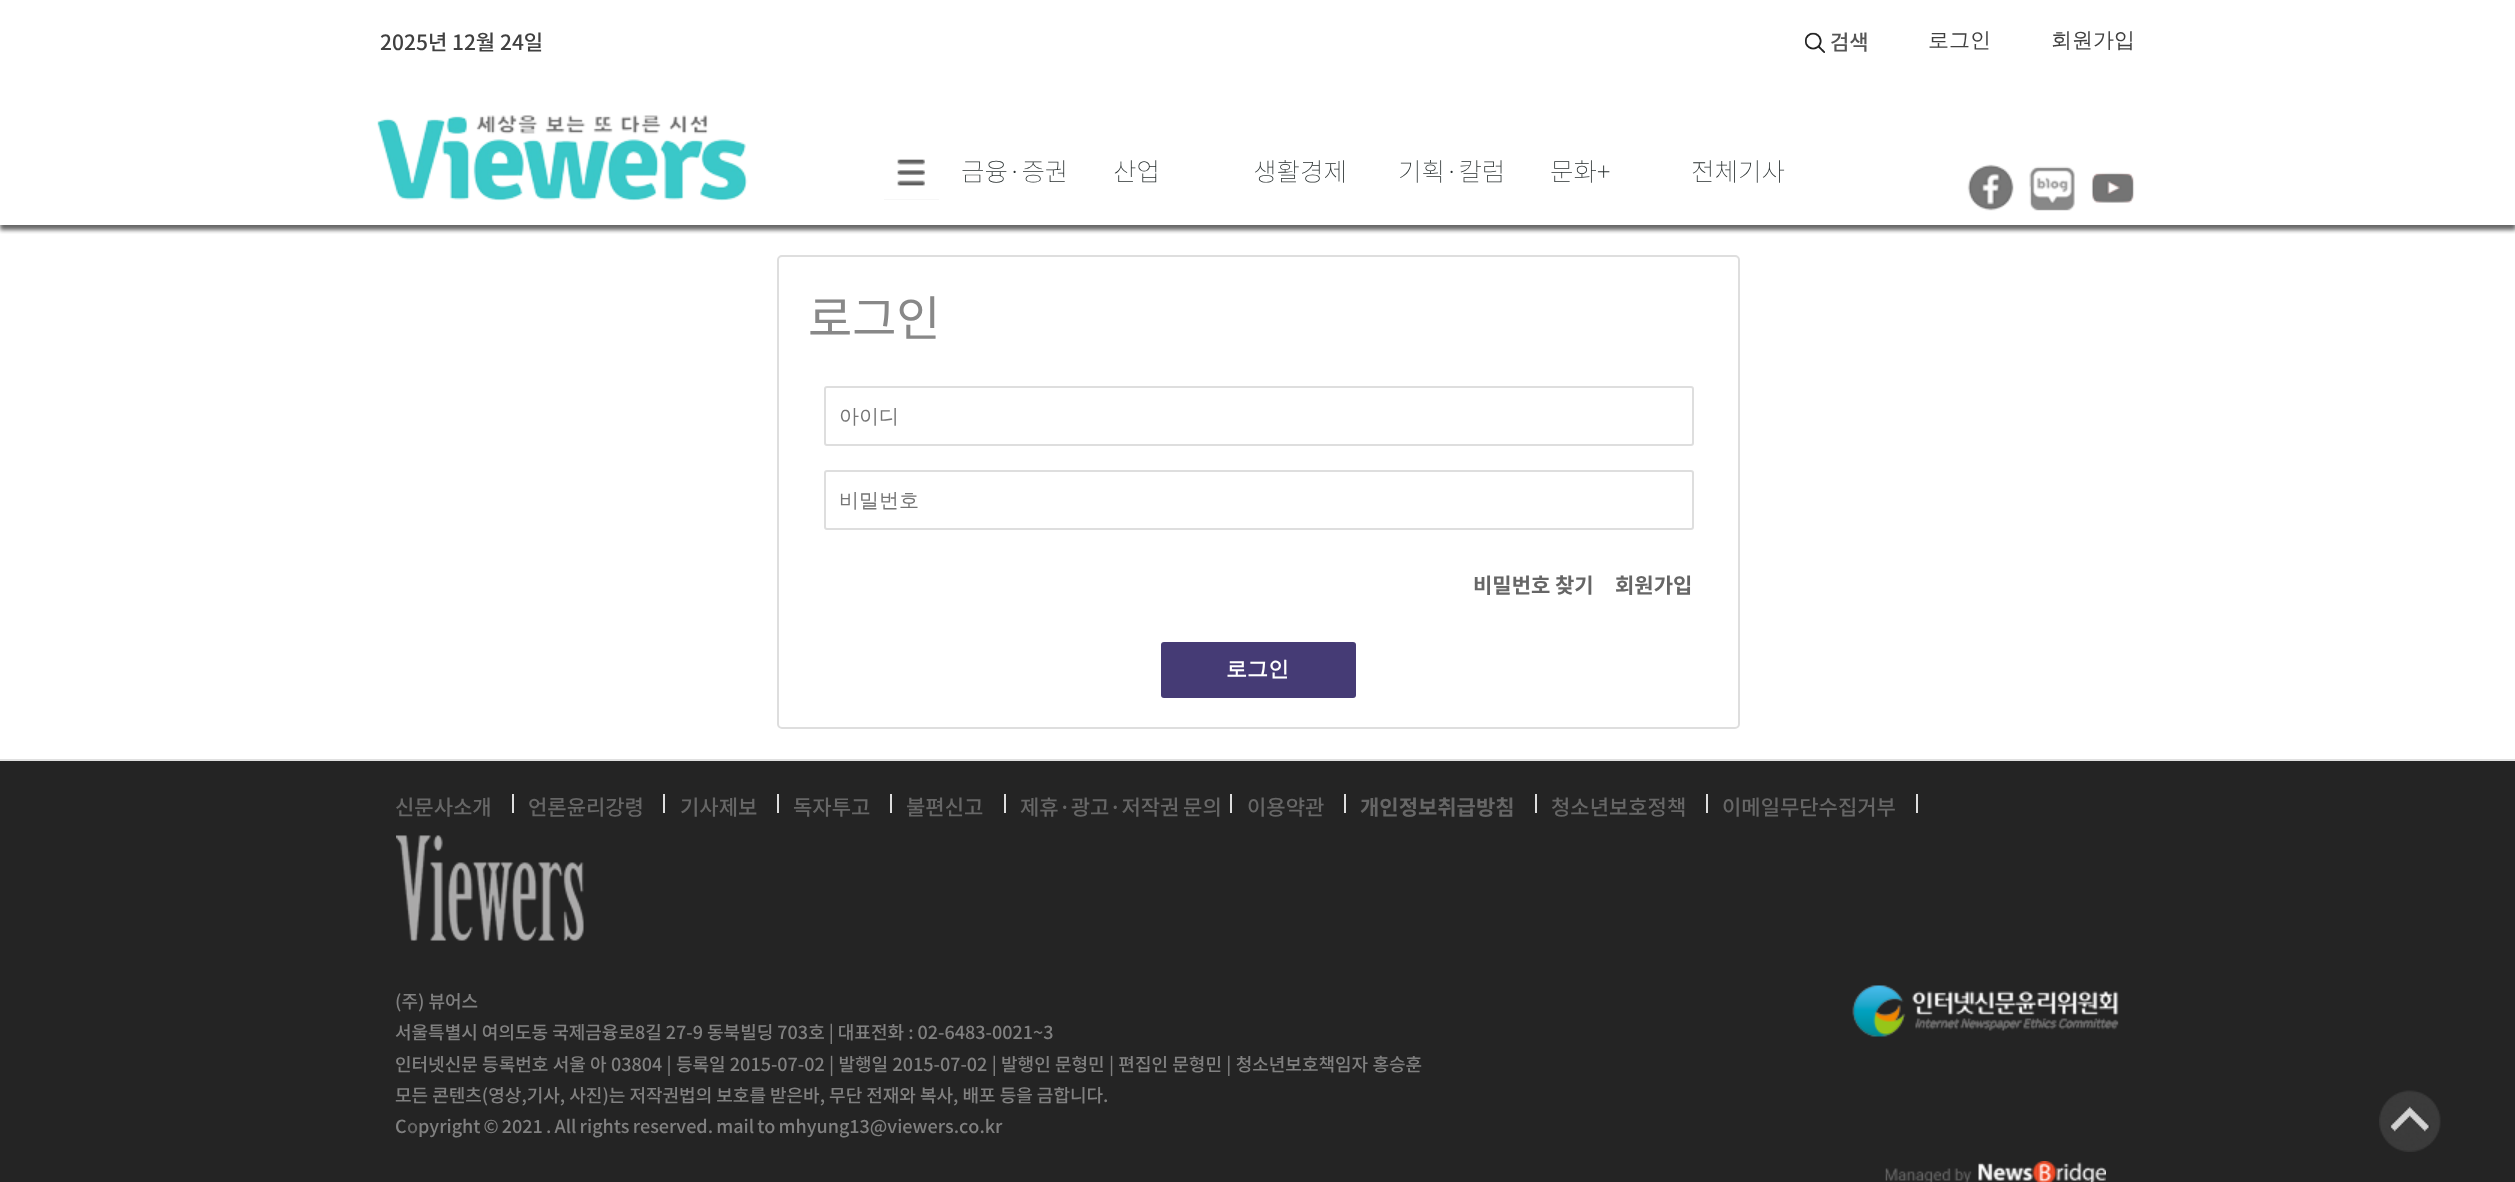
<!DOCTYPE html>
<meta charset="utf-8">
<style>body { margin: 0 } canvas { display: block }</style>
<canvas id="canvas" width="2515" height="1182"></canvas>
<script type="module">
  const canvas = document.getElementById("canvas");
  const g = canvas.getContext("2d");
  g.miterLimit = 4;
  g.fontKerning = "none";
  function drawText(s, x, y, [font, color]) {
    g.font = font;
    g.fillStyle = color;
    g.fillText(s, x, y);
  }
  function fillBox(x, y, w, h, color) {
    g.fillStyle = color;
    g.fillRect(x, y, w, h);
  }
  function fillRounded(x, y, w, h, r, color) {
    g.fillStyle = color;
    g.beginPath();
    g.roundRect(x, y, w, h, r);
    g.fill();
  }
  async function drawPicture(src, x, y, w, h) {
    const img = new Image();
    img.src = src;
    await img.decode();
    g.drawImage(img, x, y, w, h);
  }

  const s1 = ["500 21px Noto Sans KR", "#404040"];
  const s2 = ["500 21px Noto Sans KR", "#555555"];
  const s3 = ["500 21px WenQuanYi Zen Hei", "#404040"];
  const s4 = ["100 25.5px Noto Sans KR", "#282F2F"];
  const s5 = ["48px Noto Sans KR", "#888888"];
  const s6 = ["500 20px WenQuanYi Zen Hei", "#757575"];
  const s7 = ["bold 21px Noto Sans KR", "#666666"];
  const s8 = ["bold 21px WenQuanYi Zen Hei", "#FFFFFF"];
  const s9 = ["500 21px Noto Sans KR", "#666666"];
  const s10 = ["500 18px Noto Sans KR", "#808080"];
  const s11 = ["500 18px Noto Sans KR", "#666666"];

  fillBox(0, 0, 2515, 1182, "#FFFFFF");
  g.save();
  g.beginPath();
  g.rect(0, 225, 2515, 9);
  g.clip();
  g.fillStyle = "rgba(0, 0, 0, 0.6)";
  g.filter = "blur(2px)";
  g.beginPath();
  g.rect(0, 5, 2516, 225);
  g.fill();
  g.filter = "none";
  g.restore();
  drawText("2025년 12월 24일", 380, 50, s1);
  await drawPicture("pic1.png", 1805, 32, 20, 21);
  drawText("검색", 1830, 50, s2);
  drawText("로그인", 1928, 47, s3);
  drawText("회원가입", 2051, 47, s3);
  await drawPicture("pic2.png", 377, 115, 371, 86);
  await drawPicture("pic3.png", 1967, 164, 47, 47);
  await drawPicture("pic4.png", 2029, 166, 46, 45);
  await drawPicture("pic5.png", 2091, 172, 44, 31);
  fillBox(884, 199, 55, 1, "#EFEFEF");
  await drawPicture("pic6.png", 884, 144, 55, 56);
  drawText("금융·증권", 961, 181, s4);
  drawText("산업", 1113, 181, s4);
  drawText("생활경제", 1253, 181, s4);
  drawText("기획·칼럼", 1398, 181, s4);
  drawText("문화+", 1550, 181, s4);
  drawText("전체기사", 1691, 181, s4);
  g.beginPath();
  g.roundRect(778, 256, 961, 472, 4);
  g.strokeStyle = "#DEDEDE";
  g.lineWidth = 2;
  g.stroke();
  drawText("로그인", 808, 336, s5);
  g.beginPath();
  g.roundRect(825, 387, 868, 58, 2);
  g.stroke();
  drawText("아이디", 839, 423, s6);
  g.beginPath();
  g.roundRect(825, 471, 868, 58, 2);
  g.stroke();
  drawText("비밀번호", 839, 507, s6);
  drawText("비밀번호 찾기", 1473, 593, s7);
  drawText("회원가입", 1615, 593, s7);
  fillRounded(1161, 642, 195, 56, 3, "#453B75");
  drawText("로그인", 1226, 676, s8);
  fillBox(0, 761, 2515, 421, "#242424");
  fillBox(0, 759, 2515, 2, "#E0E0E0");
  drawText("신문사소개", 395, 815, s9);
  fillBox(512, 794, 2, 19, "#DEDEDE");
  drawText("언론윤리강령", 528, 815, s9);
  fillBox(663, 794, 2, 19, "#DEDEDE");
  drawText("기사제보", 680, 815, s9);
  fillBox(777, 794, 2, 19, "#DEDEDE");
  drawText("독자투고", 793, 815, s9);
  fillBox(890, 794, 2, 19, "#DEDEDE");
  drawText("불편신고", 906, 815, s9);
  fillBox(1004, 794, 2, 19, "#DEDEDE");
  g.wordSpacing = "-1px";
  drawText("제휴·광고·저작권 문의", 1020, 815, s9);
  fillBox(1230, 794, 2, 19, "#DEDEDE");
  g.wordSpacing = "0px";
  drawText("이용약관", 1247, 815, s9);
  fillBox(1344, 794, 2, 19, "#DEDEDE");
  drawText("개인정보취급방침", 1360, 815, s7);
  fillBox(1535, 794, 2, 19, "#DEDEDE");
  drawText("청소년보호정책", 1551, 815, s9);
  fillBox(1706, 794, 2, 19, "#DEDEDE");
  drawText("이메일무단수집거부", 1722, 815, s9);
  fillBox(1916, 794, 2, 19, "#DEDEDE");
  await drawPicture("pic7.png", 396, 835, 188, 106);
  drawText("(주) 뷰어스", 395, 1008, s10);
  drawText("서울특별시 여의도동 국제금융로8길 27-9 동북빌딩 703호 | 대표전화 : 02-6483-0021~3", 395, 1039, s10);
  g.wordSpacing = "0.25px";
  drawText("인터넷신문 등록번호 서울 아 03804 | 등록일 2015-07-02 | 발행일 2015-07-02 | 발행인 문형민 | 편집인 문형민 | 청소년보호책임자 홍승훈", 395, 1071, s10);
  g.wordSpacing = "0px";
  drawText("모든 콘텐츠(영상,기사, 사진)는 저작권법의 보호를 받은바, 무단 전재와 복사, 배포 등을 금합니다.", 395, 1102, s10);
  drawText("C", 395, 1133, s10);
  drawText("o", 407, 1133, s11);
  g.wordSpacing = "-0.9px";
  drawText("pyright © 2021 . All rights reserved. mail to mhyung13@viewers.co.kr", 418, 1133, s10);
  await drawPicture("pic8.png", 1852, 985, 267, 52);
  await drawPicture("pic9.png", 1885, 1161, 221, 21);
  await drawPicture("pic10.png", 2379, 1090, 62, 62);
</script>
